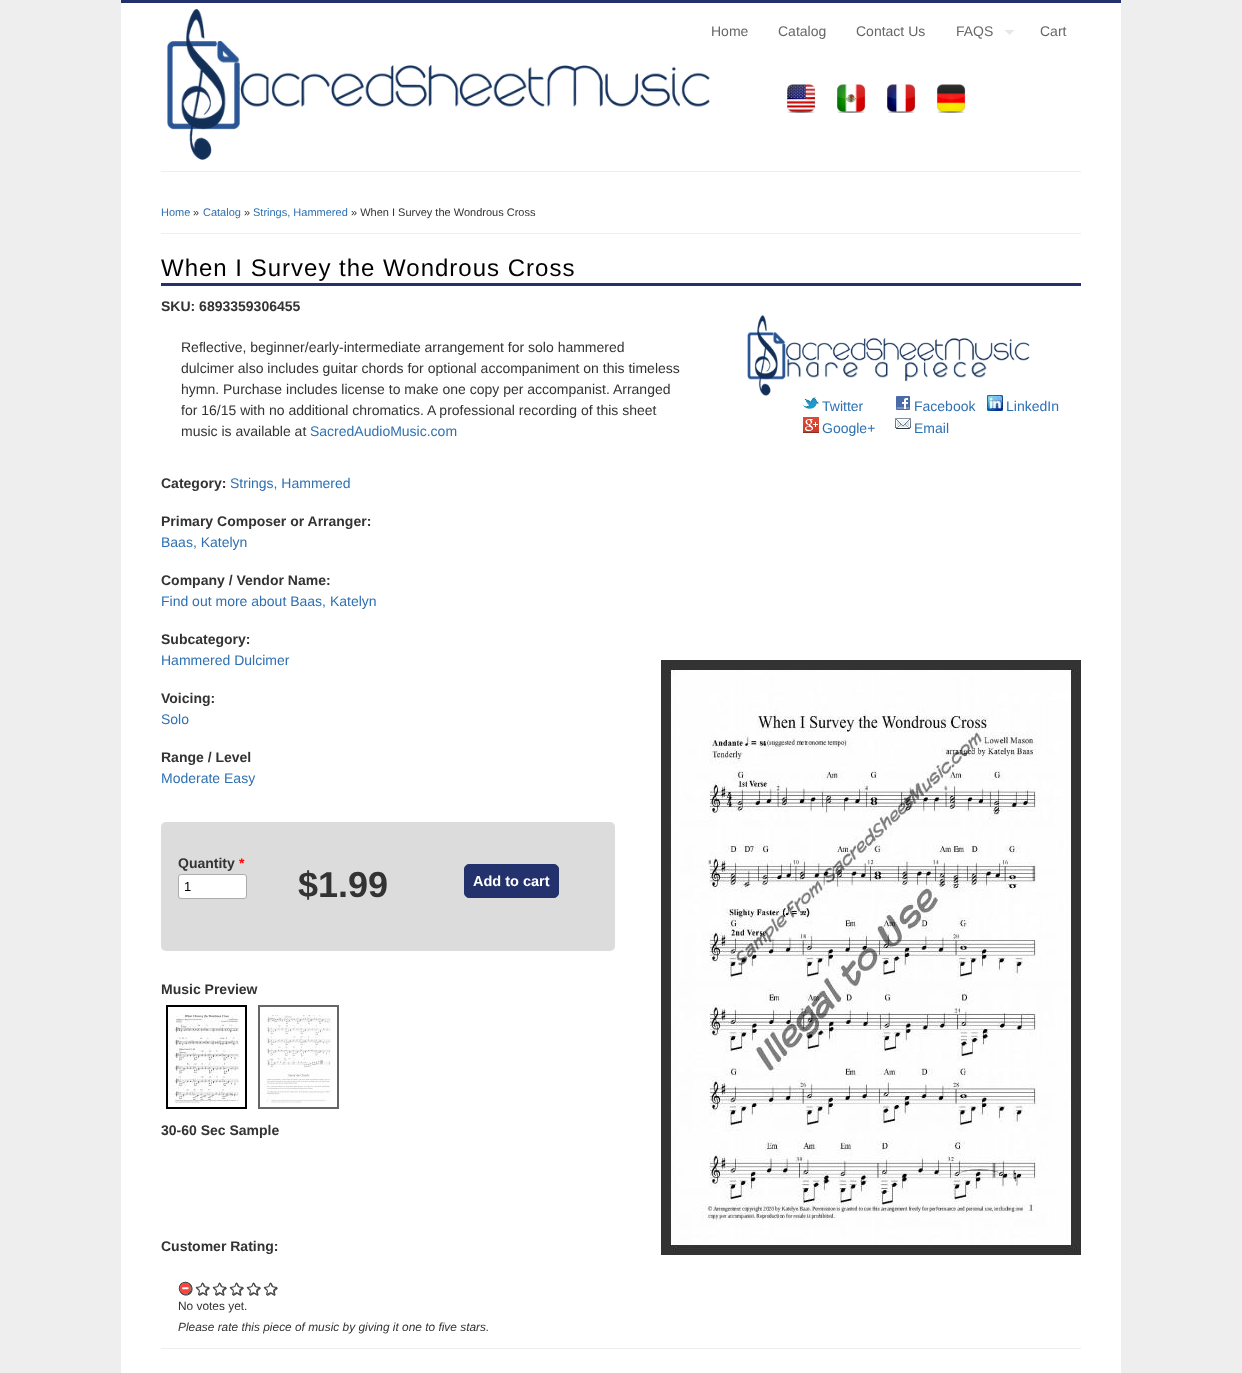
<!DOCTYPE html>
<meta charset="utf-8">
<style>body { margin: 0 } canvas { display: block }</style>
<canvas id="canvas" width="1242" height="1373"></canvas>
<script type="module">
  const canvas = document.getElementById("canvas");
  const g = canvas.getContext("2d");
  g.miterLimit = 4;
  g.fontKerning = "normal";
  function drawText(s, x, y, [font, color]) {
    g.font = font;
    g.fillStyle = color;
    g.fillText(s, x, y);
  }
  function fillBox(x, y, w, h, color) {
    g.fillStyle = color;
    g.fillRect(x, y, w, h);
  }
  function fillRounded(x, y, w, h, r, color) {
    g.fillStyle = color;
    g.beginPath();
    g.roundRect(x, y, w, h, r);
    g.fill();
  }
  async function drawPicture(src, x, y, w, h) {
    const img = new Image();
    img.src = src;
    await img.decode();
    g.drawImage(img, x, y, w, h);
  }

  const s1 = ["14px Liberation Sans", "#666666"];
  const s2 = ["11px Liberation Sans", "#2E70B1"];
  const s3 = ["11px Liberation Sans", "#333333"];
  const s4 = ["24px Liberation Sans", "#000000"];
  const s5 = ["bold 14px Liberation Sans", "#333333"];
  const s6 = ["14px Liberation Sans", "#333333"];
  const s7 = ["14px Liberation Sans", "#2E70B1"];
  const s8 = ["bold 14px Liberation Sans", "#FF0000"];
  const s9 = ["13px Liberation Sans", "#000000"];
  const s10 = ["bold 14.5px Liberation Sans", "#FFFFFF"];
  const s11 = ["bold 36px Liberation Sans", "#333333"];
  const s12 = ["11.9px Liberation Sans", "#333333"];
  const s13 = ["italic 11.9px Liberation Sans", "#333333"];

  fillBox(0, 0, 1242, 1373, "#EEEEEE");
  fillBox(121, 3, 1000, 1370, "#FFFFFF");
  fillBox(121, 0, 1000, 3, "#23316D");
  fillBox(161, 171, 920, 1, "#EEEEEE");
  await drawPicture("pic1.png", 167, 9, 543, 151);
  await drawPicture("pic2.png", 787, 84, 29, 29);
  await drawPicture("pic3.png", 837, 84, 29, 29);
  await drawPicture("pic4.png", 887, 84, 29, 29);
  await drawPicture("pic5.png", 937, 84, 29, 29);
  drawText("Home", 711, 36, s1);
  drawText("Catalog", 778, 36, s1);
  drawText("Contact Us", 856, 36, s1);
  drawText("FAQS", 956, 36, s1);
  await drawPicture("pic6.png", 1005, 30, 9, 5);
  drawText("Cart", 1040, 36, s1);
  fillBox(161, 233, 920, 1, "#EEEEEE");
  drawText("Home", 161, 216, s2);
  drawText("»", 193, 216, s3);
  drawText("Catalog", 203, 216, s2);
  drawText("»", 244, 216, s3);
  drawText("Strings, Hammered", 253, 216, s2);
  drawText("» When I Survey the Wondrous Cross", 351, 216, s3);
  fillBox(161, 283, 920, 3, "#23316D");
  g.letterSpacing = "1px";
  drawText("When I Survey the Wondrous Cross", 161, 276, s4);
  g.letterSpacing = "0px";
  drawText("SKU: 6893359306455", 161, 311, s5);
  drawText("Reflective, beginner/early-intermediate arrangement for solo hammered", 181, 352, s6);
  drawText("dulcimer also includes guitar chords for optional accompaniment on this timeless", 181, 373, s6);
  drawText("hymn. Purchase includes license to make one copy per accompanist. Arranged", 181, 394, s6);
  drawText("for 16/15 with no additional chromatics. A professional recording of this sheet", 181, 415, s6);
  drawText("music is available at", 181, 436, s6);
  drawText("SacredAudioMusic.com", 310, 436, s7);
  drawText("Category:", 161, 488, s5);
  drawText("Strings, Hammered", 230, 488, s7);
  drawText("Primary Composer or Arranger:", 161, 526, s5);
  drawText("Baas, Katelyn", 161, 547, s7);
  drawText("Company / Vendor Name:", 161, 585, s5);
  drawText("Find out more about Baas, Katelyn", 161, 606, s7);
  drawText("Subcategory:", 161, 644, s5);
  drawText("Hammered Dulcimer", 161, 665, s7);
  drawText("Voicing:", 161, 703, s5);
  drawText("Solo", 161, 724, s7);
  drawText("Range / Level", 161, 762, s5);
  drawText("Moderate Easy", 161, 783, s7);
  fillRounded(161, 822, 454, 129, 5, "#DCDCDC");
  drawText("Quantity", 178, 868, s5);
  drawText("*", 239, 868, s8);
  g.fillStyle = "#FFFFFF";
  g.beginPath();
  g.roundRect(178.5, 874.5, 68, 24, 2.5);
  g.fill();
  g.strokeStyle = "#ACACAC";
  g.stroke();
  drawText("1", 184, 891, s9);
  g.fillStyle = "#23316D";
  g.beginPath();
  g.roundRect(464.5, 864.5, 94, 33, 4.5);
  g.fill();
  g.strokeStyle = "#23316D";
  g.stroke();
  drawText("Add to cart", 473, 886, s10);
  drawText("$1.99", 298, 897, s11);
  g.strokeStyle = "#000000";
  g.lineWidth = 2;
  g.strokeRect(167, 1006, 79, 102);
  await drawPicture("pic7.png", 168, 1015, 72, 88);
  g.strokeStyle = "#666666";
  g.strokeRect(259, 1006, 79, 102);
  await drawPicture("pic8.png", 260, 1015, 72, 88);
  await drawPicture("pic9.png", 661, 660, 420, 595);
  drawText("Music Preview", 161, 994, s5);
  drawText("30-60 Sec Sample", 161, 1135, s5);
  drawText("Customer Rating:", 161, 1251, s5);
  await drawPicture("pic10.png", 178, 1281, 15, 15);
  await drawPicture("pic11.png", 195, 1282, 15, 14);
  await drawPicture("pic11.png", 212, 1282, 15, 14);
  await drawPicture("pic11.png", 229, 1282, 15, 14);
  await drawPicture("pic11.png", 246, 1282, 15, 14);
  await drawPicture("pic11.png", 263, 1282, 15, 14);
  drawText("No votes yet.", 178, 1310, s12);
  drawText("Please rate this piece of music by giving it one to five stars.", 178, 1331, s13);
  await drawPicture("pic12.png", 747, 315, 283, 81);
  await drawPicture("pic13.png", 803, 397, 16, 12);
  drawText("Twitter", 822, 411, s7);
  await drawPicture("pic14.png", 896, 396, 14, 14);
  drawText("Facebook", 914, 411, s7);
  await drawPicture("pic15.png", 987, 395, 16, 16);
  drawText("LinkedIn", 1006, 411, s7);
  await drawPicture("pic16.png", 803, 417, 16, 16);
  drawText("Google+", 822, 433, s7);
  await drawPicture("pic17.png", 895, 418, 16, 11);
  drawText("Email", 914, 433, s7);
  fillBox(161, 1348, 920, 1, "#EEEEEE");
</script>
